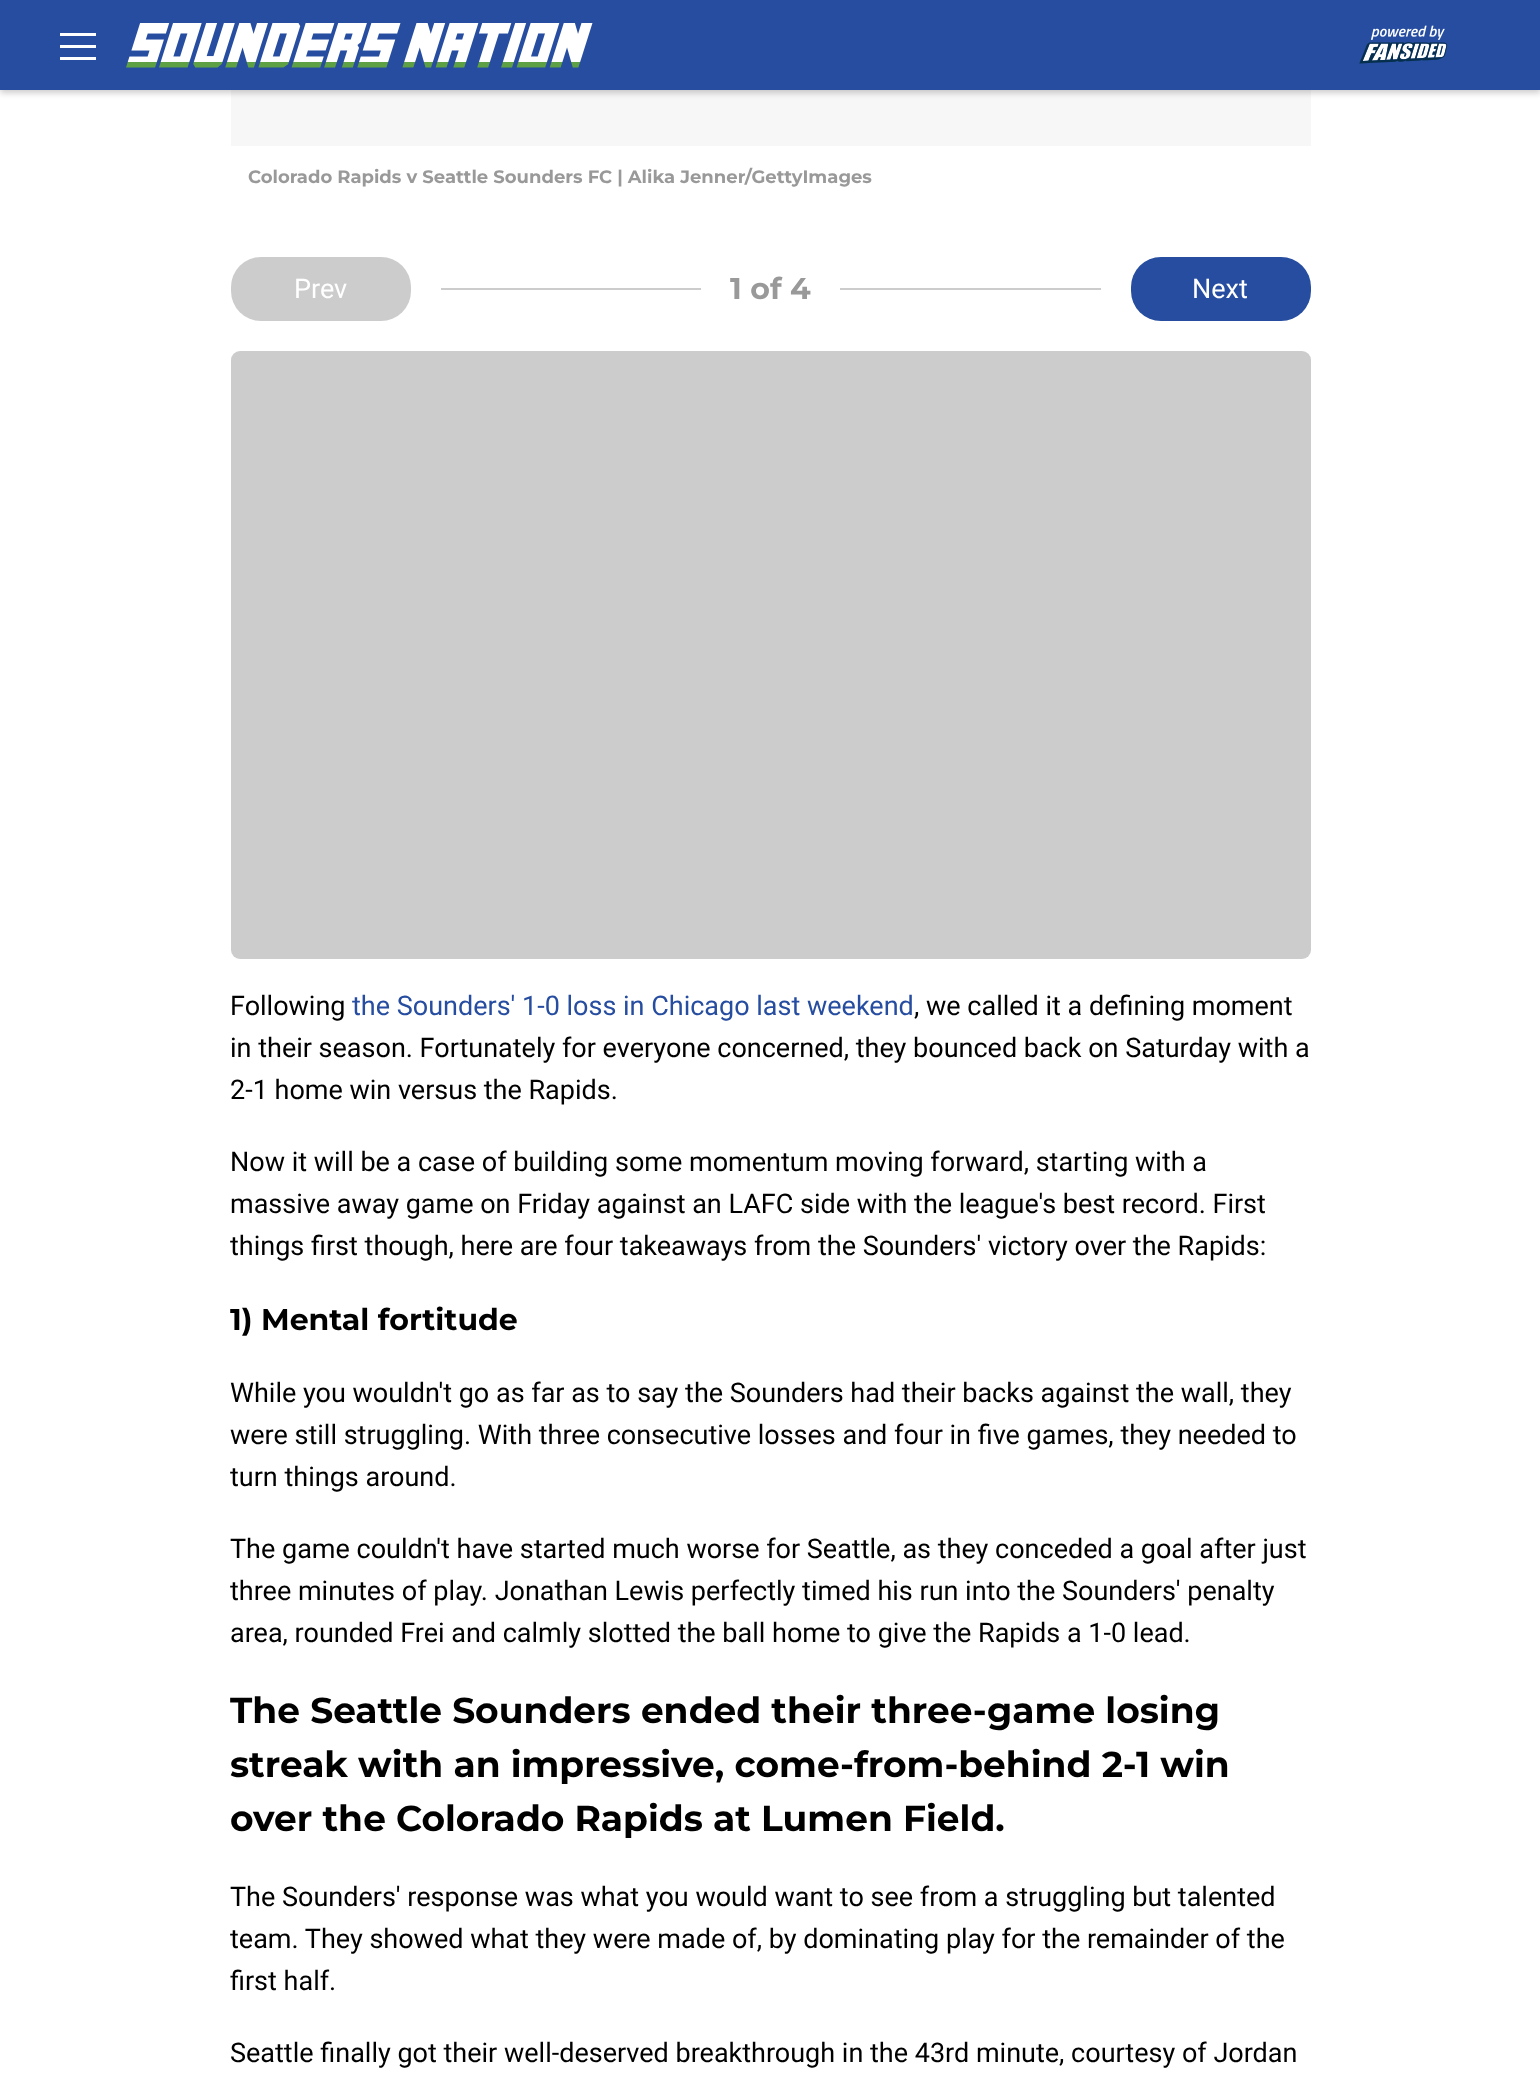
<!DOCTYPE html>
<meta charset="utf-8">
<style>body { margin: 0 } canvas { display: block }</style>
<canvas id="canvas" width="1540" height="2090"></canvas>
<script type="module">
  const canvas = document.getElementById("canvas");
  const g = canvas.getContext("2d");
  g.miterLimit = 4;
  g.fontKerning = "normal";
  function drawText(s, x, y, [font, color]) {
    g.font = font;
    g.fillStyle = color;
    g.fillText(s, x, y);
  }
  function fillBox(x, y, w, h, color) {
    g.fillStyle = color;
    g.fillRect(x, y, w, h);
  }
  function fillRounded(x, y, w, h, r, color) {
    g.fillStyle = color;
    g.beginPath();
    g.roundRect(x, y, w, h, r);
    g.fill();
  }
  async function drawPicture(src, x, y, w, h) {
    const img = new Image();
    img.src = src;
    await img.decode();
    g.drawImage(img, x, y, w, h);
  }

  const s1 = ["100 18px Montserrat", "#999999"];
  const s2 = ["27px Roboto", "#FFFFFF"];
  const s3 = ["100 30px Montserrat", "#999999"];
  const s4 = ["27px Roboto", "#000000"];
  const s5 = ["27px Roboto", "#264DA0"];
  const s6 = ["100 30px Montserrat", "#000000"];
  const s7 = ["100 36px Montserrat", "#000000"];

  fillBox(0, 0, 1540, 2090, "#FFFFFF");
  fillBox(231, 90, 1080, 56, "#F7F7F7");
  g.fillStyle = "rgba(0, 0, 0, 0.2)";
  g.filter = "blur(3px)";
  g.beginPath();
  g.rect(0, 3, 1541, 90);
  g.fill();
  g.filter = "none";
  fillBox(0, 0, 1540, 90, "#264DA0");
  fillBox(60, 33, 36, 3, "#FFFFFF");
  fillBox(60, 45, 36, 3, "#FFFFFF");
  fillBox(60, 57, 36, 3, "#FFFFFF");
  await drawPicture("pic1.png", 126, 23, 467, 45);
  await drawPicture("pic2.png", 1359, 25, 89, 39);
  drawText("Colorado Rapids v Seattle Sounders FC | Alika Jenner/GettyImages", 248, 183, s1);
  fillRounded(231, 257, 180, 64, 30, "#CCCCCC");
  drawText("Prev", 294, 298, s2);
  fillBox(441, 288, 260, 2, "#CCCCCC");
  drawText("1 of 4", 730, 299, s3);
  fillBox(840, 288, 261, 2, "#CCCCCC");
  fillRounded(1131, 257, 180, 64, 30, "#264DA0");
  drawText("Next", 1192, 298, s2);
  fillRounded(231, 351, 1080, 608, 9, "#CCCCCC");
  drawText("Following", 230, 1015, s4);
  drawText("the Sounders' 1-0 loss in Chicago last weekend", 352, 1015, s5);
  drawText(", we called it a defining moment", 914, 1015, s4);
  drawText("in their season. Fortunately for everyone concerned, they bounced back on Saturday with a", 230, 1057, s4);
  drawText("2-1 home win versus the Rapids.", 230, 1099, s4);
  drawText("Now it will be a case of building some momentum moving forward, starting with a", 230, 1171, s4);
  drawText("massive away game on Friday against an LAFC side with the league's best record. First", 230, 1213, s4);
  drawText("things first though, here are four takeaways from the Sounders' victory over the Rapids:", 230, 1255, s4);
  drawText("1) Mental fortitude", 230, 1330, s6);
  drawText("While you wouldn't go as far as to say the Sounders had their backs against the wall, they", 230, 1402, s4);
  drawText("were still struggling. With three consecutive losses and four in five games, they needed to", 230, 1444, s4);
  drawText("turn things around.", 230, 1486, s4);
  drawText("The game couldn't have started much worse for Seattle, as they conceded a goal after just", 230, 1558, s4);
  drawText("three minutes of play. Jonathan Lewis perfectly timed his run into the Sounders' penalty", 230, 1600, s4);
  drawText("area, rounded Frei and calmly slotted the ball home to give the Rapids a 1-0 lead.", 230, 1642, s4);
  drawText("The Seattle Sounders ended their three-game losing", 230, 1723, s7);
  drawText("streak with an impressive, come-from-behind 2-1 win", 230, 1777, s7);
  drawText("over the Colorado Rapids at Lumen Field.", 230, 1831, s7);
  drawText("The Sounders' response was what you would want to see from a struggling but talented", 230, 1906, s4);
  drawText("team. They showed what they were made of, by dominating play for the remainder of the", 230, 1948, s4);
  drawText("first half.", 230, 1990, s4);
  drawText("Seattle finally got their well-deserved breakthrough in the 43rd minute, courtesy of Jordan", 230, 2062, s4);
</script>
